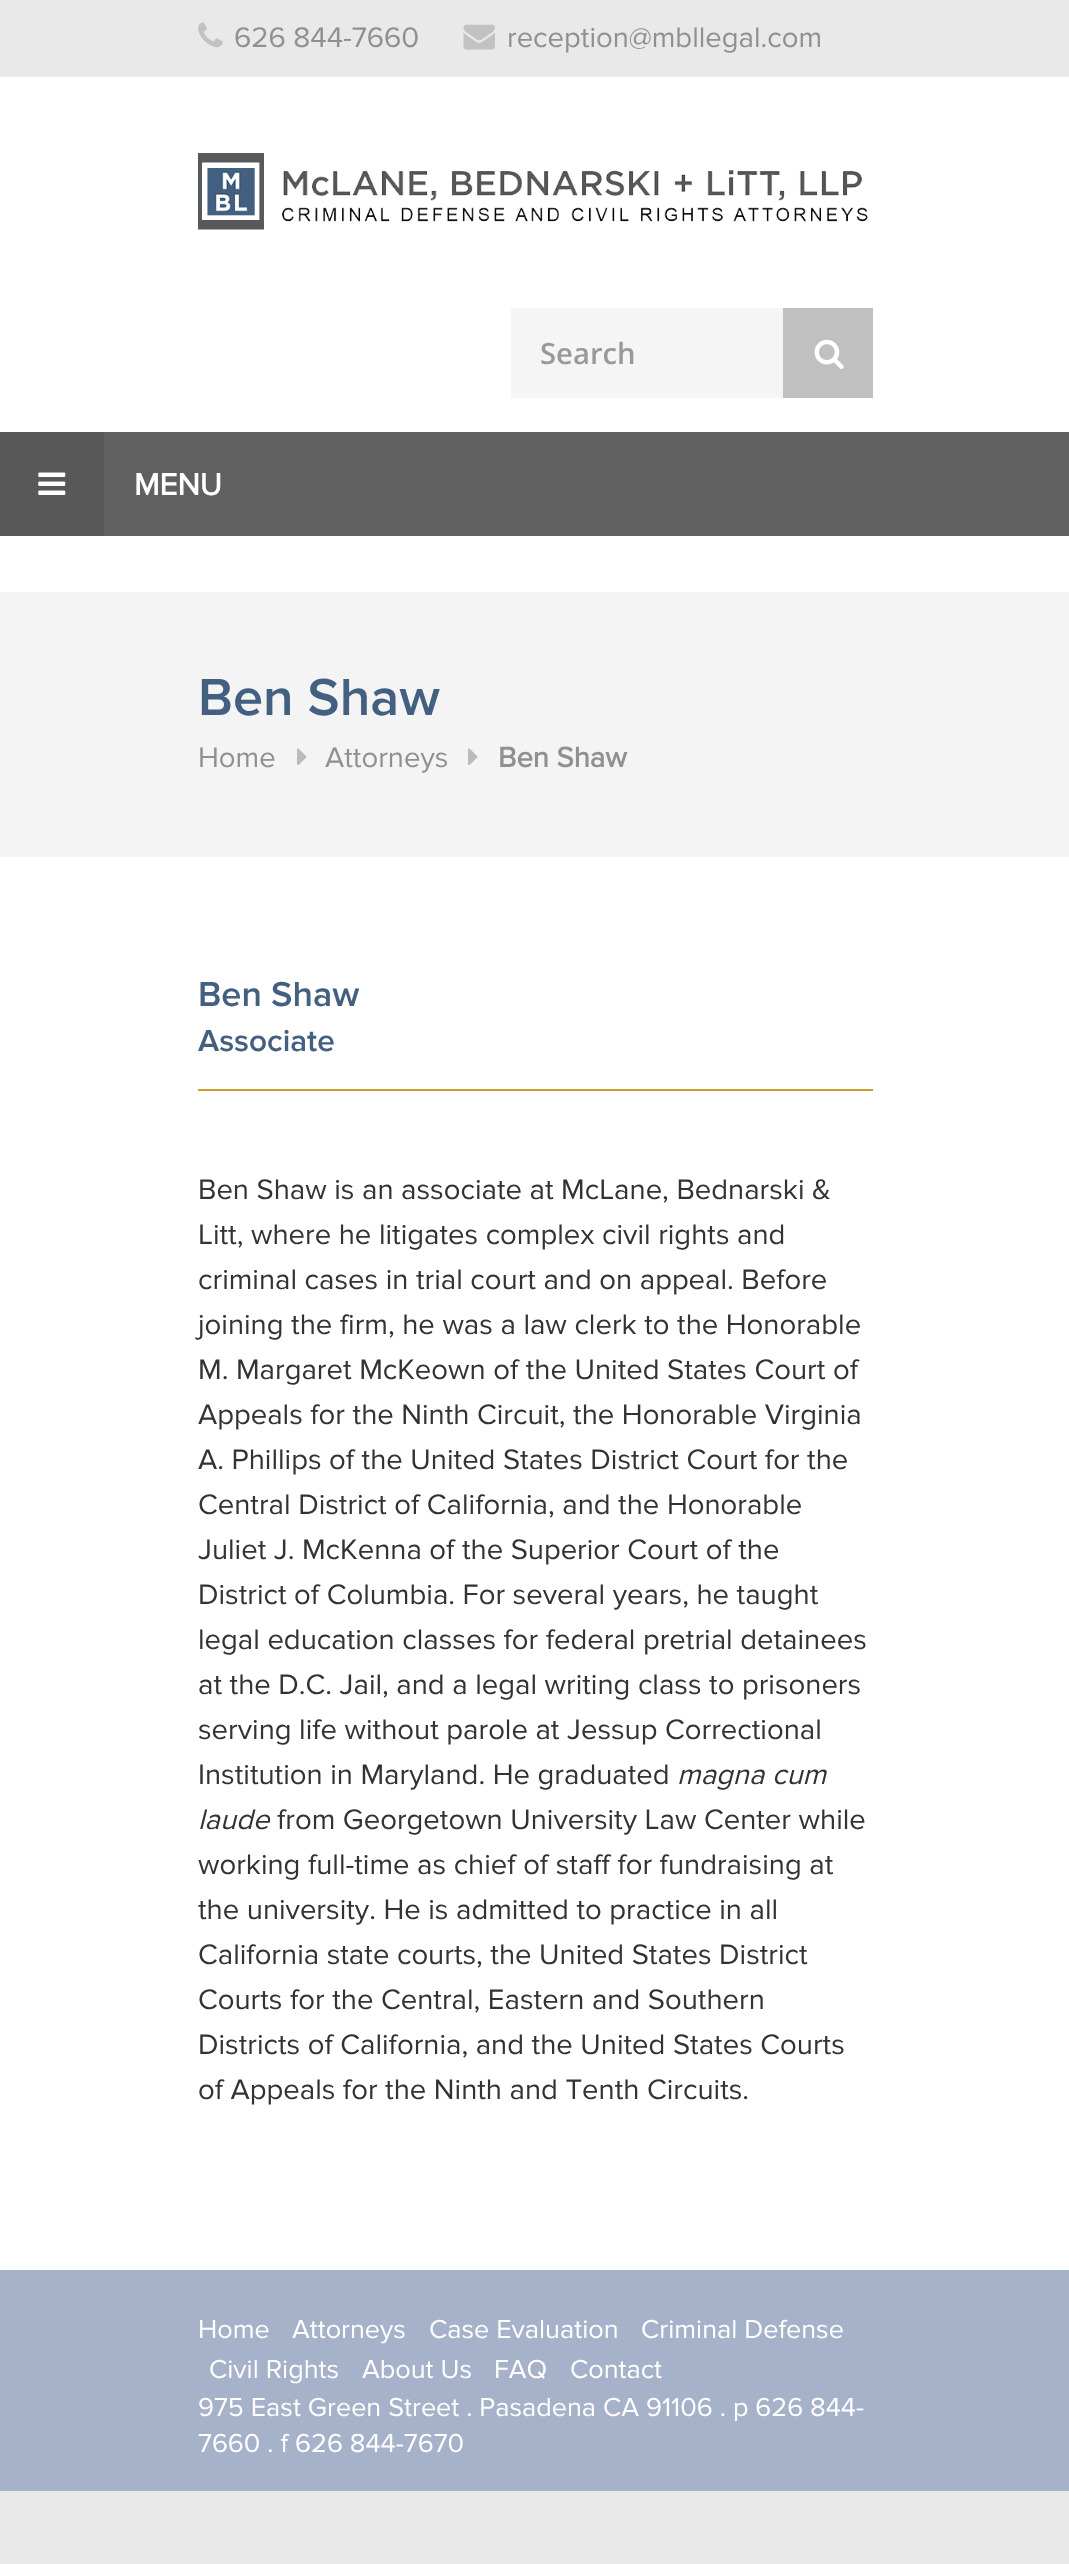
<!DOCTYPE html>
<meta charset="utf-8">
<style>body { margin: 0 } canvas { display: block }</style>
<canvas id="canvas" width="1069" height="2564"></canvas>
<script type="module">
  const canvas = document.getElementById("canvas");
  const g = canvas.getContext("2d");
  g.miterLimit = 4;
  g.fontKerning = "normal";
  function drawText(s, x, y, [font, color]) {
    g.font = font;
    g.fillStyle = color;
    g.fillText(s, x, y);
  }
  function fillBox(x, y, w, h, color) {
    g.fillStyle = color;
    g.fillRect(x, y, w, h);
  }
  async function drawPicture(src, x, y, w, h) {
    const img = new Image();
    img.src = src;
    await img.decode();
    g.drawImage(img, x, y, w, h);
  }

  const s1 = ["29.25px 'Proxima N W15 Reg'", "#909090"];
  const s2 = ["600 29.25px Open Sans", "#999999"];
  const s3 = ["bold 31.5px 'Proxima N W15 Reg'", "#FFFFFF"];
  const s4 = ["600 54px 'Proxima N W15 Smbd'", "#446081"];
  const s5 = ["bold 29.25px 'Proxima N W15 Reg'", "#909090"];
  const s6 = ["600 36px 'Proxima N W15 Smbd'", "#446081"];
  const s7 = ["600 31.5px 'Proxima N W15 Smbd'", "#446081"];
  const s8 = ["29.25px 'Proxima N W15 Reg'", "#333333"];
  const s9 = ["italic 29.25px 'Proxima N W15 Reg'", "#333333"];
  const s10 = ["27px 'Proxima N W15 Reg'", "#FFFFFF"];

  fillBox(0, 0, 1069, 2564, "#E9E9E9");
  fillBox(0, 77, 1069, 2193, "#FFFFFF");
  await drawPicture("pic1.png", 198, 22, 25, 26);
  drawText("626 844-7660", 234, 47, s1);
  await drawPicture("pic2.png", 463, 24, 32, 26);
  drawText("reception@mbllegal.com", 507, 47, s1);
  await drawPicture("pic3.png", 198, 153, 670, 77);
  fillBox(511, 308, 272, 90, "#F5F5F5");
  drawText("Search", 540, 364, s2);
  fillBox(783, 308, 90, 90, "#C0C0C0");
  await drawPicture("pic4.png", 814, 339, 30, 30);
  fillBox(104, 432, 965, 104, "#606060");
  fillBox(0, 432, 104, 104, "#585858");
  await drawPicture("pic5.png", 38, 472, 28, 23);
  drawText("MENU", 134, 495, s3);
  fillBox(0, 592, 1069, 265, "#F4F4F4");
  drawText("Ben Shaw", 198, 715, s4);
  drawText("Home", 198, 767, s1);
  await drawPicture("pic6.png", 297, 748, 10, 17);
  drawText("Attorneys", 325, 767, s1);
  await drawPicture("pic6.png", 468, 748, 10, 17);
  drawText("Ben Shaw", 498, 767, s5);
  drawText("Ben Shaw", 198, 1006, s6);
  drawText("Associate", 198, 1051, s7);
  fillBox(198, 1089, 675, 2, "#CB9B2B");
  drawText("Ben Shaw is an associate at McLane, Bednarski &", 198, 1199, s8);
  drawText("Litt, where he litigates complex civil rights and", 198, 1244, s8);
  drawText("criminal cases in trial court and on appeal. Before", 198, 1289, s8);
  drawText("joining the firm, he was a law clerk to the Honorable", 198, 1334, s8);
  drawText("M. Margaret McKeown of the United States Court of", 198, 1379, s8);
  drawText("Appeals for the Ninth Circuit, the Honorable Virginia", 198, 1424, s8);
  drawText("A. Phillips of the United States District Court for the", 198, 1469, s8);
  drawText("Central District of California, and the Honorable", 198, 1514, s8);
  drawText("Juliet J. McKenna of the Superior Court of the", 198, 1559, s8);
  drawText("District of Columbia. For several years, he taught", 198, 1604, s8);
  drawText("legal education classes for federal pretrial detainees", 198, 1649, s8);
  drawText("at the D.C. Jail, and a legal writing class to prisoners", 198, 1694, s8);
  drawText("serving life without parole at Jessup Correctional", 198, 1739, s8);
  drawText("Institution in Maryland. He graduated", 198, 1784, s8);
  drawText("magna cum", 677, 1784, s9);
  drawText("laude", 198, 1829, s9);
  drawText("from Georgetown University Law Center while", 277, 1829, s8);
  drawText("working full-time as chief of staff for fundraising at", 198, 1874, s8);
  drawText("the university. He is admitted to practice in all", 198, 1919, s8);
  drawText("California state courts, the United States District", 198, 1964, s8);
  drawText("Courts for the Central, Eastern and Southern", 198, 2009, s8);
  drawText("Districts of California, and the United States Courts", 198, 2054, s8);
  drawText("of Appeals for the Ninth and Tenth Circuits.", 198, 2099, s8);
  fillBox(0, 2270, 1069, 221, "#A6B2CA");
  drawText("Home", 198, 2338, s10);
  drawText("Attorneys", 292, 2338, s10);
  drawText("Case Evaluation", 429, 2338, s10);
  drawText("Criminal Defense", 641, 2338, s10);
  drawText("Civil Rights", 209, 2378, s10);
  drawText("About Us", 362, 2378, s10);
  drawText("FAQ", 494, 2378, s10);
  drawText("Contact", 570, 2378, s10);
  drawText("975 East Green Street . Pasadena CA 91106 . p 626 844-", 198, 2416, s10);
  drawText("7660 . f 626 844-7670", 198, 2452, s10);
</script>
